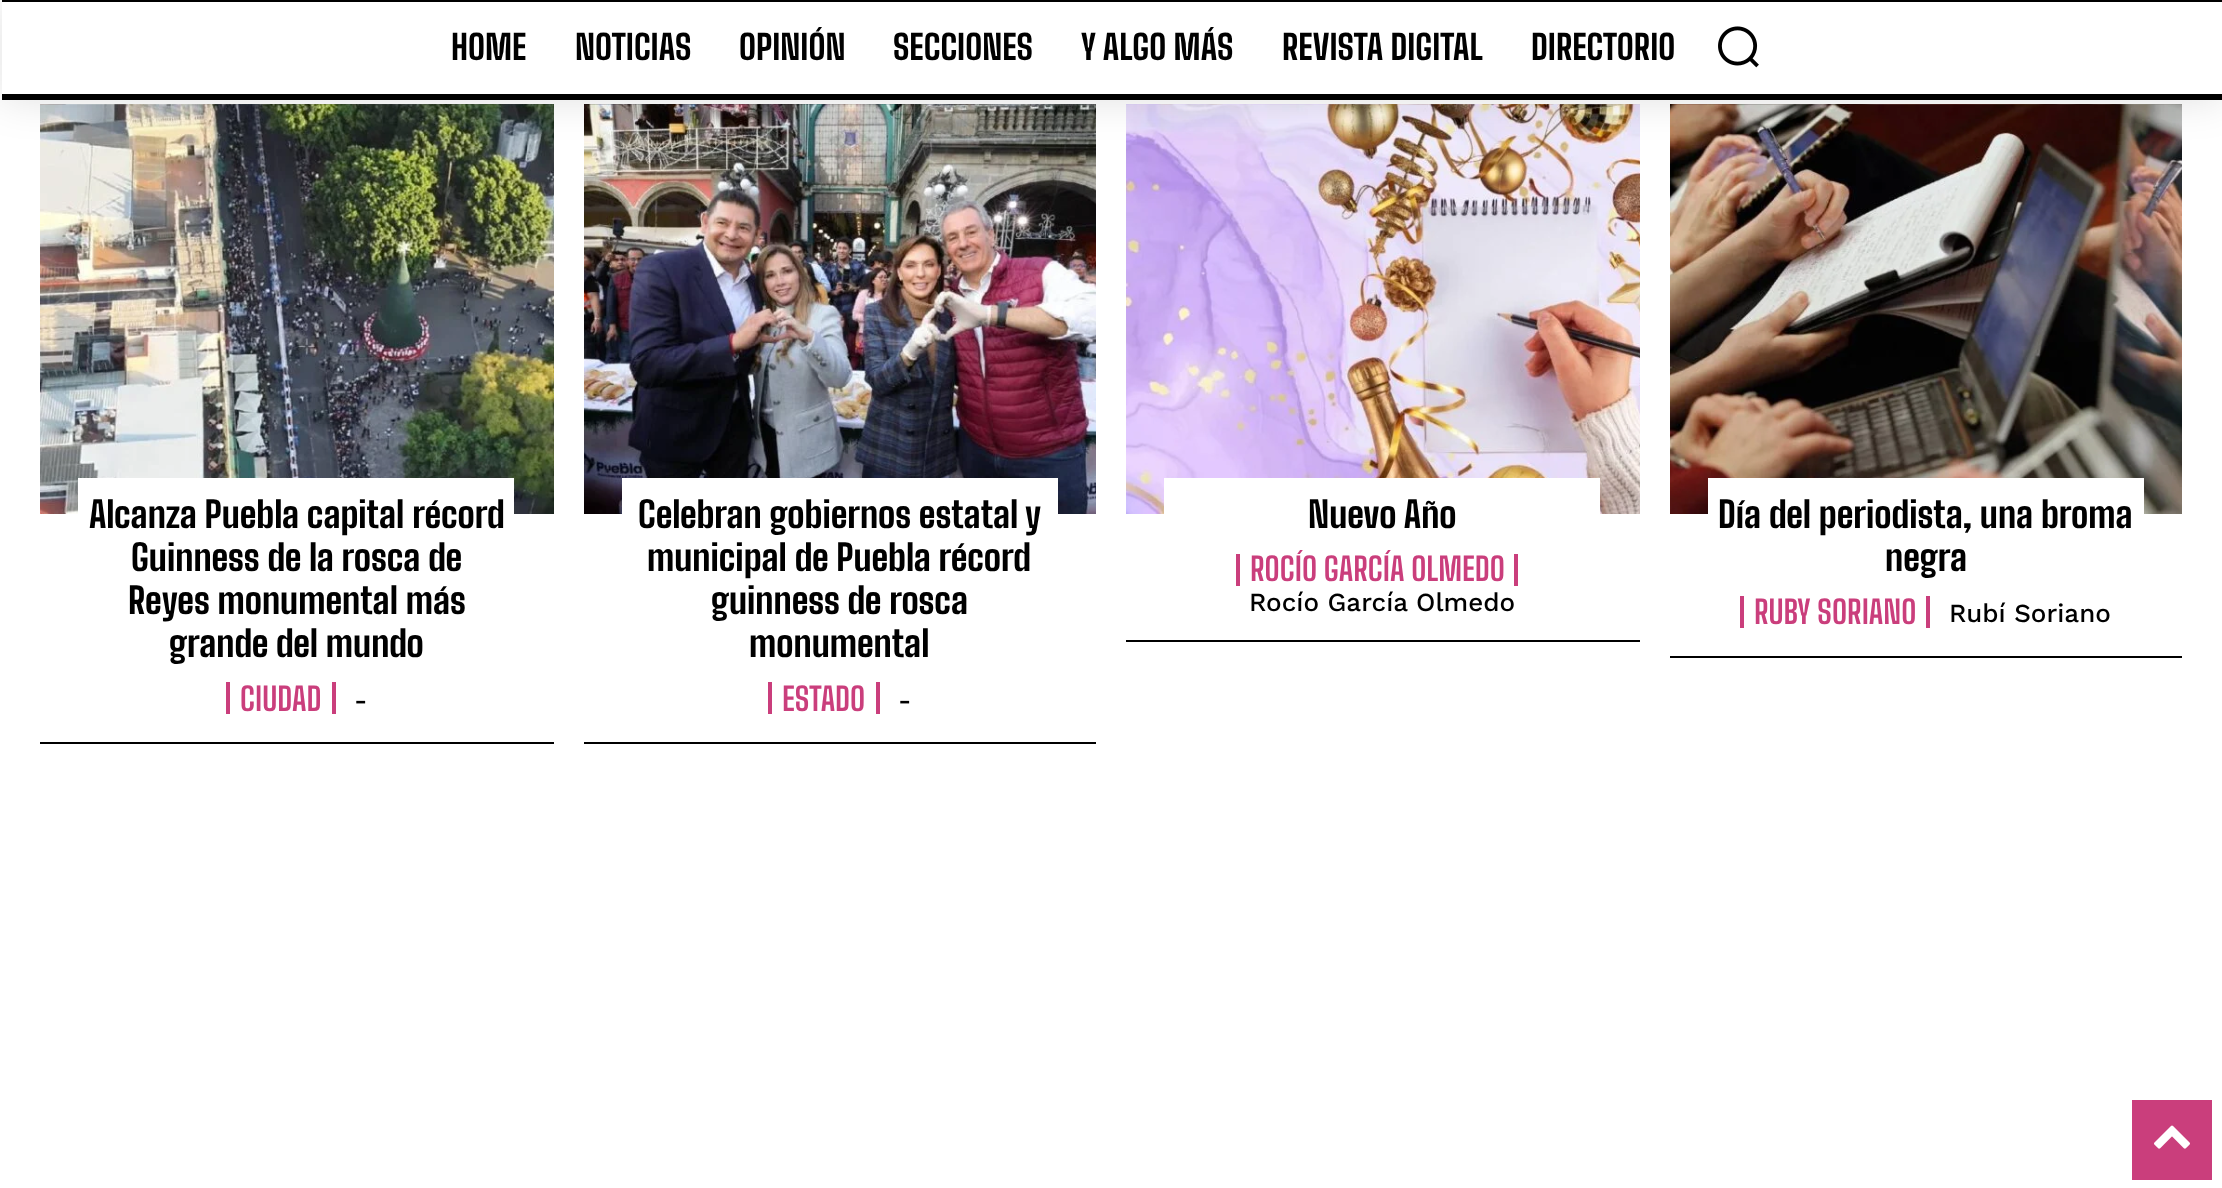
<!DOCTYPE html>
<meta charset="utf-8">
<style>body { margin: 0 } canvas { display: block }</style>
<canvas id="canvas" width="2222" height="1188"></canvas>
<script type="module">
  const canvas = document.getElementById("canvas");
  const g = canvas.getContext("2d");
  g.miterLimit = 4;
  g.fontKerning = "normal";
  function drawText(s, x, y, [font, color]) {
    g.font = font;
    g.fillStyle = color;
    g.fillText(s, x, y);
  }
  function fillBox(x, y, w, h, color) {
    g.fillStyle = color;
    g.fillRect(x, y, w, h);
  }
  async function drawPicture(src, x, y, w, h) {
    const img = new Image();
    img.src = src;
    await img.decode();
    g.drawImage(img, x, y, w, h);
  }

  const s1 = ["800 34px Big Shoulders Text", "#000000"];
  const s2 = ["800 36px Big Shoulders Text", "#000000"];
  const s3 = ["bold 32px Big Shoulders Text", "#CA3E7C"];
  const s4 = ["500 26px Work Sans", "#000000"];

  fillBox(0, 0, 2222, 1188, "#FFFFFF");
  fillBox(2, 0, 2220, 2, "#000000");
  fillBox(2, 94, 2220, 6, "#000000");
  await drawPicture("pic2.png", 40, 104, 514, 410);
  await drawPicture("pic3.png", 584, 104, 512, 410);
  await drawPicture("pic4.png", 1126, 104, 514, 410);
  await drawPicture("pic5.png", 1670, 104, 512, 410);
  g.save();
  g.beginPath();
  g.moveTo(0, 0);
  g.lineTo(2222, 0);
  g.lineTo(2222, 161);
  g.lineTo(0, 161);
  g.closePath();
  g.moveTo(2, 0);
  g.lineTo(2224, 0);
  g.lineTo(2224, 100);
  g.lineTo(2, 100);
  g.closePath();
  g.clip("evenodd");
  g.fillStyle = "rgba(0, 0, 0, 0.12)";
  g.filter = "blur(20px)";
  g.beginPath();
  g.rect(2, 0, 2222, 100);
  g.fill();
  g.filter = "none";
  g.restore();
  drawText("HOME", 451, 60, s1);
  drawText("NOTICIAS", 575, 60, s1);
  drawText("OPINIÓN", 739, 60, s1);
  drawText("SECCIONES", 893, 60, s1);
  drawText("Y ALGO MÁS", 1081, 60, s1);
  drawText("REVISTA DIGITAL", 1282, 60, s1);
  drawText("DIRECTORIO", 1531, 60, s1);
  await drawPicture("pic1.png", 1718, 26, 41, 42);
  fillBox(78, 478, 436, 36, "#FFFFFF");
  drawText("Alcanza Puebla capital récord", 89, 528, s2);
  drawText("Guinness de la rosca de", 131, 571, s2);
  drawText("Reyes monumental más", 128, 614, s2);
  drawText("grande del mundo", 169, 657, s2);
  fillBox(332, 682, 4, 32, "#CA3E7C");
  fillBox(226, 682, 4, 32, "#CA3E7C");
  drawText("CIUDAD", 240, 711, s3);
  drawText("-", 354, 709, s4);
  fillBox(40, 742, 514, 2, "#000000");
  fillBox(622, 478, 436, 36, "#FFFFFF");
  drawText("Celebran gobiernos estatal y", 638, 528, s2);
  drawText("municipal de Puebla récord", 647, 571, s2);
  drawText("guinness de rosca", 711, 614, s2);
  drawText("monumental", 749, 657, s2);
  fillBox(876, 682, 4, 32, "#CA3E7C");
  fillBox(768, 682, 4, 32, "#CA3E7C");
  drawText("ESTADO", 782, 711, s3);
  drawText("-", 898, 709, s4);
  fillBox(584, 742, 512, 2, "#000000");
  fillBox(1164, 478, 436, 36, "#FFFFFF");
  drawText("Nuevo Año", 1308, 528, s2);
  fillBox(1514, 554, 4, 32, "#CA3E7C");
  fillBox(1236, 554, 4, 32, "#CA3E7C");
  drawText("ROCÍO GARCÍA OLMEDO", 1250, 581, s3);
  drawText("Rocío García Olmedo", 1249, 611, s4);
  fillBox(1126, 640, 514, 2, "#000000");
  fillBox(1708, 478, 436, 36, "#FFFFFF");
  drawText("Día del periodista, una broma", 1718, 528, s2);
  drawText("negra", 1885, 571, s2);
  fillBox(1926, 596, 4, 32, "#CA3E7C");
  fillBox(1740, 596, 4, 32, "#CA3E7C");
  drawText("RUBY SORIANO", 1754, 624, s3);
  drawText("Rubí Soriano", 1949, 622, s4);
  fillBox(1670, 656, 512, 2, "#000000");
  fillBox(2132, 1100, 80, 80, "#CA3E7C");
  await drawPicture("pic6.png", 2154, 1125, 36, 24);
</script>
